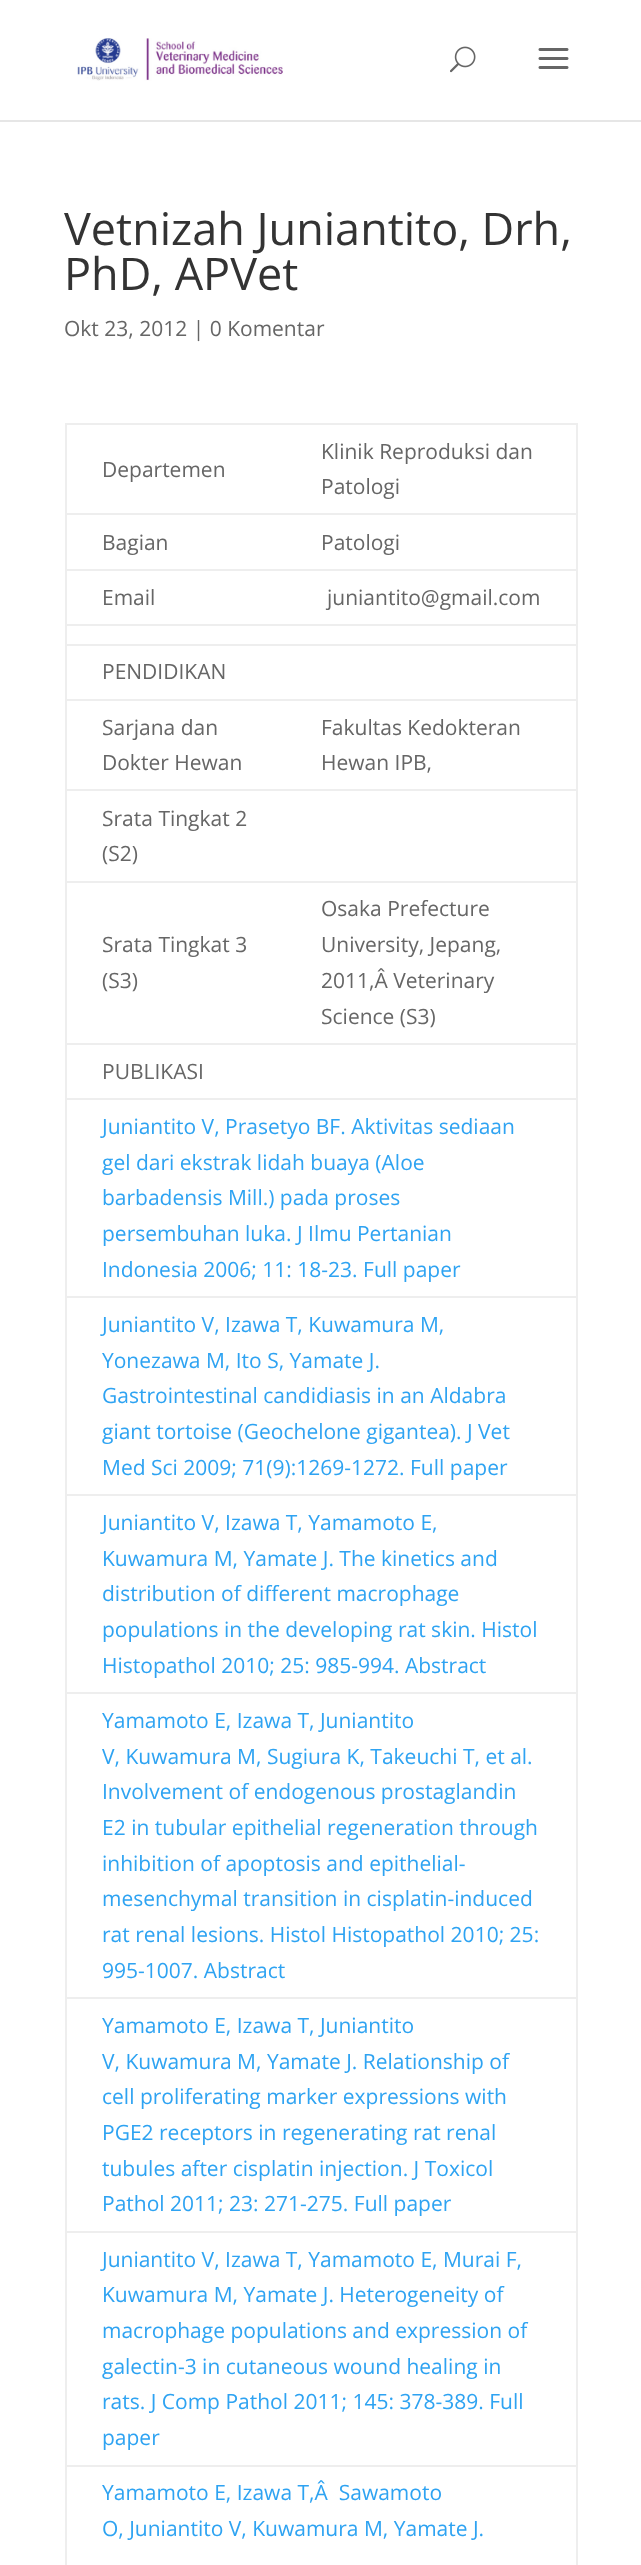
<!DOCTYPE html>
<meta charset="utf-8">
<style>body { margin: 0 } canvas { display: block }</style>
<canvas id="canvas" width="641" height="2565"></canvas>
<script type="module">
  const canvas = document.getElementById("canvas");
  const g = canvas.getContext("2d");
  g.miterLimit = 4;
  g.fontKerning = "normal";
  function drawText(s, x, y, [font, color]) {
    g.font = font;
    g.fillStyle = color;
    g.fillText(s, x, y);
  }
  function fillBox(x, y, w, h, color) {
    g.fillStyle = color;
    g.fillRect(x, y, w, h);
  }
  async function drawPicture(src, x, y, w, h) {
    const img = new Image();
    img.src = src;
    await img.decode();
    g.drawImage(img, x, y, w, h);
  }

  const s1 = ["45px Open Sans", "#333333"];
  const s2 = ["21px Open Sans", "#666666"];
  const s3 = ["21px Open Sans", "#2EA3F2"];

  fillBox(0, 0, 641, 2565, "#FFFFFF");
  fillBox(0, 120, 641, 2, "#E6E6E6");
  await drawPicture("pic1.png", 77, 38, 206, 43);
  await drawPicture("pic2.png", 450, 46, 26, 27);
  await drawPicture("pic3.png", 538, 48, 31, 21);
  drawText("Vetnizah Juniantito, Drh,", 64, 245, s1);
  drawText("PhD, APVet", 64, 290, s1);
  drawText("Okt 23, 2012 | 0 Komentar", 64, 336, s2);
  fillBox(65, 423, 513, 2, "#EEEEEE");
  fillBox(576, 423, 2, 2142, "#EEEEEE");
  fillBox(65, 423, 2, 2142, "#EEEEEE");
  drawText("Departemen", 102, 477, s2);
  drawText("Klinik Reproduksi dan", 321, 459, s2);
  drawText("Patologi", 321, 494, s2);
  drawText("Bagian", 102, 550, s2);
  fillBox(65, 513, 513, 2, "#EEEEEE");
  drawText("Patologi", 321, 550, s2);
  drawText("Email", 102, 605, s2);
  fillBox(65, 569, 513, 2, "#EEEEEE");
  drawText("juniantito@gmail.com", 327, 605, s2);
  fillBox(65, 624, 513, 2, "#EEEEEE");
  fillBox(65, 644, 513, 2, "#EEEEEE");
  drawText("PENDIDIKAN", 102, 679, s2);
  drawText("Sarjana dan", 102, 735, s2);
  drawText("Dokter Hewan", 102, 770, s2);
  fillBox(65, 699, 513, 2, "#EEEEEE");
  drawText("Fakultas Kedokteran", 321, 735, s2);
  drawText("Hewan IPB,", 321, 770, s2);
  fillBox(65, 789, 513, 2, "#EEEEEE");
  drawText("Srata Tingkat 2", 102, 826, s2);
  drawText("(S2)", 102, 861, s2);
  drawText("Srata Tingkat 3", 102, 952, s2);
  drawText("(S3)", 102, 988, s2);
  fillBox(65, 881, 513, 2, "#EEEEEE");
  drawText("Osaka Prefecture", 321, 916, s2);
  drawText("University, Jepang,", 321, 952, s2);
  drawText("2011,Â Veterinary", 321, 988, s2);
  drawText("Science (S3)", 321, 1024, s2);
  fillBox(65, 1043, 513, 2, "#EEEEEE");
  drawText("PUBLIKASI", 102, 1079, s2);
  fillBox(65, 1098, 513, 2, "#EEEEEE");
  drawText("Juniantito V, Prasetyo BF. Aktivitas sediaan", 102, 1134, s3);
  drawText("gel dari ekstrak lidah buaya (Aloe", 102, 1170, s3);
  drawText("barbadensis Mill.) pada proses", 102, 1205, s3);
  drawText("persembuhan luka. J Ilmu Pertanian", 102, 1241, s3);
  drawText("Indonesia 2006; 11: 18-23. Full paper", 102, 1277, s3);
  fillBox(65, 1296, 513, 2, "#EEEEEE");
  drawText("Juniantito V, Izawa T, Kuwamura M,", 102, 1332, s3);
  drawText("Yonezawa M, Ito S, Yamate J.", 102, 1368, s3);
  drawText("Gastrointestinal candidiasis in an Aldabra", 102, 1403, s3);
  drawText("giant tortoise (Geochelone gigantea). J Vet", 102, 1439, s3);
  drawText("Med Sci 2009; 71(9):1269-1272. Full paper", 102, 1475, s3);
  fillBox(65, 1494, 513, 2, "#EEEEEE");
  drawText("Juniantito V, Izawa T, Yamamoto E,", 102, 1530, s3);
  drawText("Kuwamura M, Yamate J. The kinetics and", 102, 1566, s3);
  drawText("distribution of different macrophage", 102, 1601, s3);
  drawText("populations in the developing rat skin. Histol", 102, 1637, s3);
  drawText("Histopathol 2010; 25: 985-994. Abstract", 102, 1673, s3);
  fillBox(65, 1692, 513, 2, "#EEEEEE");
  drawText("Yamamoto E, Izawa T, Juniantito", 102, 1728, s3);
  drawText("V, Kuwamura M, Sugiura K, Takeuchi T, et al.", 102, 1764, s3);
  drawText("Involvement of endogenous prostaglandin", 102, 1799, s3);
  drawText("E2 in tubular epithelial regeneration through", 102, 1835, s3);
  drawText("inhibition of apoptosis and epithelial-", 102, 1871, s3);
  drawText("mesenchymal transition in cisplatin-induced", 102, 1906, s3);
  drawText("rat renal lesions. Histol Histopathol 2010; 25:", 102, 1942, s3);
  drawText("995-1007. Abstract", 102, 1978, s3);
  fillBox(65, 1997, 513, 2, "#EEEEEE");
  drawText("Yamamoto E, Izawa T, Juniantito", 102, 2033, s3);
  drawText("V, Kuwamura M, Yamate J. Relationship of", 102, 2069, s3);
  drawText("cell proliferating marker expressions with", 102, 2104, s3);
  drawText("PGE2 receptors in regenerating rat renal", 102, 2140, s3);
  drawText("tubules after cisplatin injection. J Toxicol", 102, 2176, s3);
  drawText("Pathol 2011; 23: 271-275. Full paper", 102, 2211, s3);
  fillBox(65, 2231, 513, 2, "#EEEEEE");
  drawText("Juniantito V, Izawa T, Yamamoto E, Murai F,", 102, 2267, s3);
  drawText("Kuwamura M, Yamate J. Heterogeneity of", 102, 2302, s3);
  drawText("macrophage populations and expression of", 102, 2338, s3);
  drawText("galectin-3 in cutaneous wound healing in", 102, 2374, s3);
  drawText("rats. J Comp Pathol 2011; 145: 378-389. Full", 102, 2409, s3);
  drawText("paper", 102, 2445, s3);
  fillBox(65, 2465, 513, 2, "#EEEEEE");
  drawText("Yamamoto E, Izawa T,Â  Sawamoto", 102, 2500, s3);
  drawText("O, Juniantito V, Kuwamura M, Yamate J.", 102, 2536, s3);
</script>
